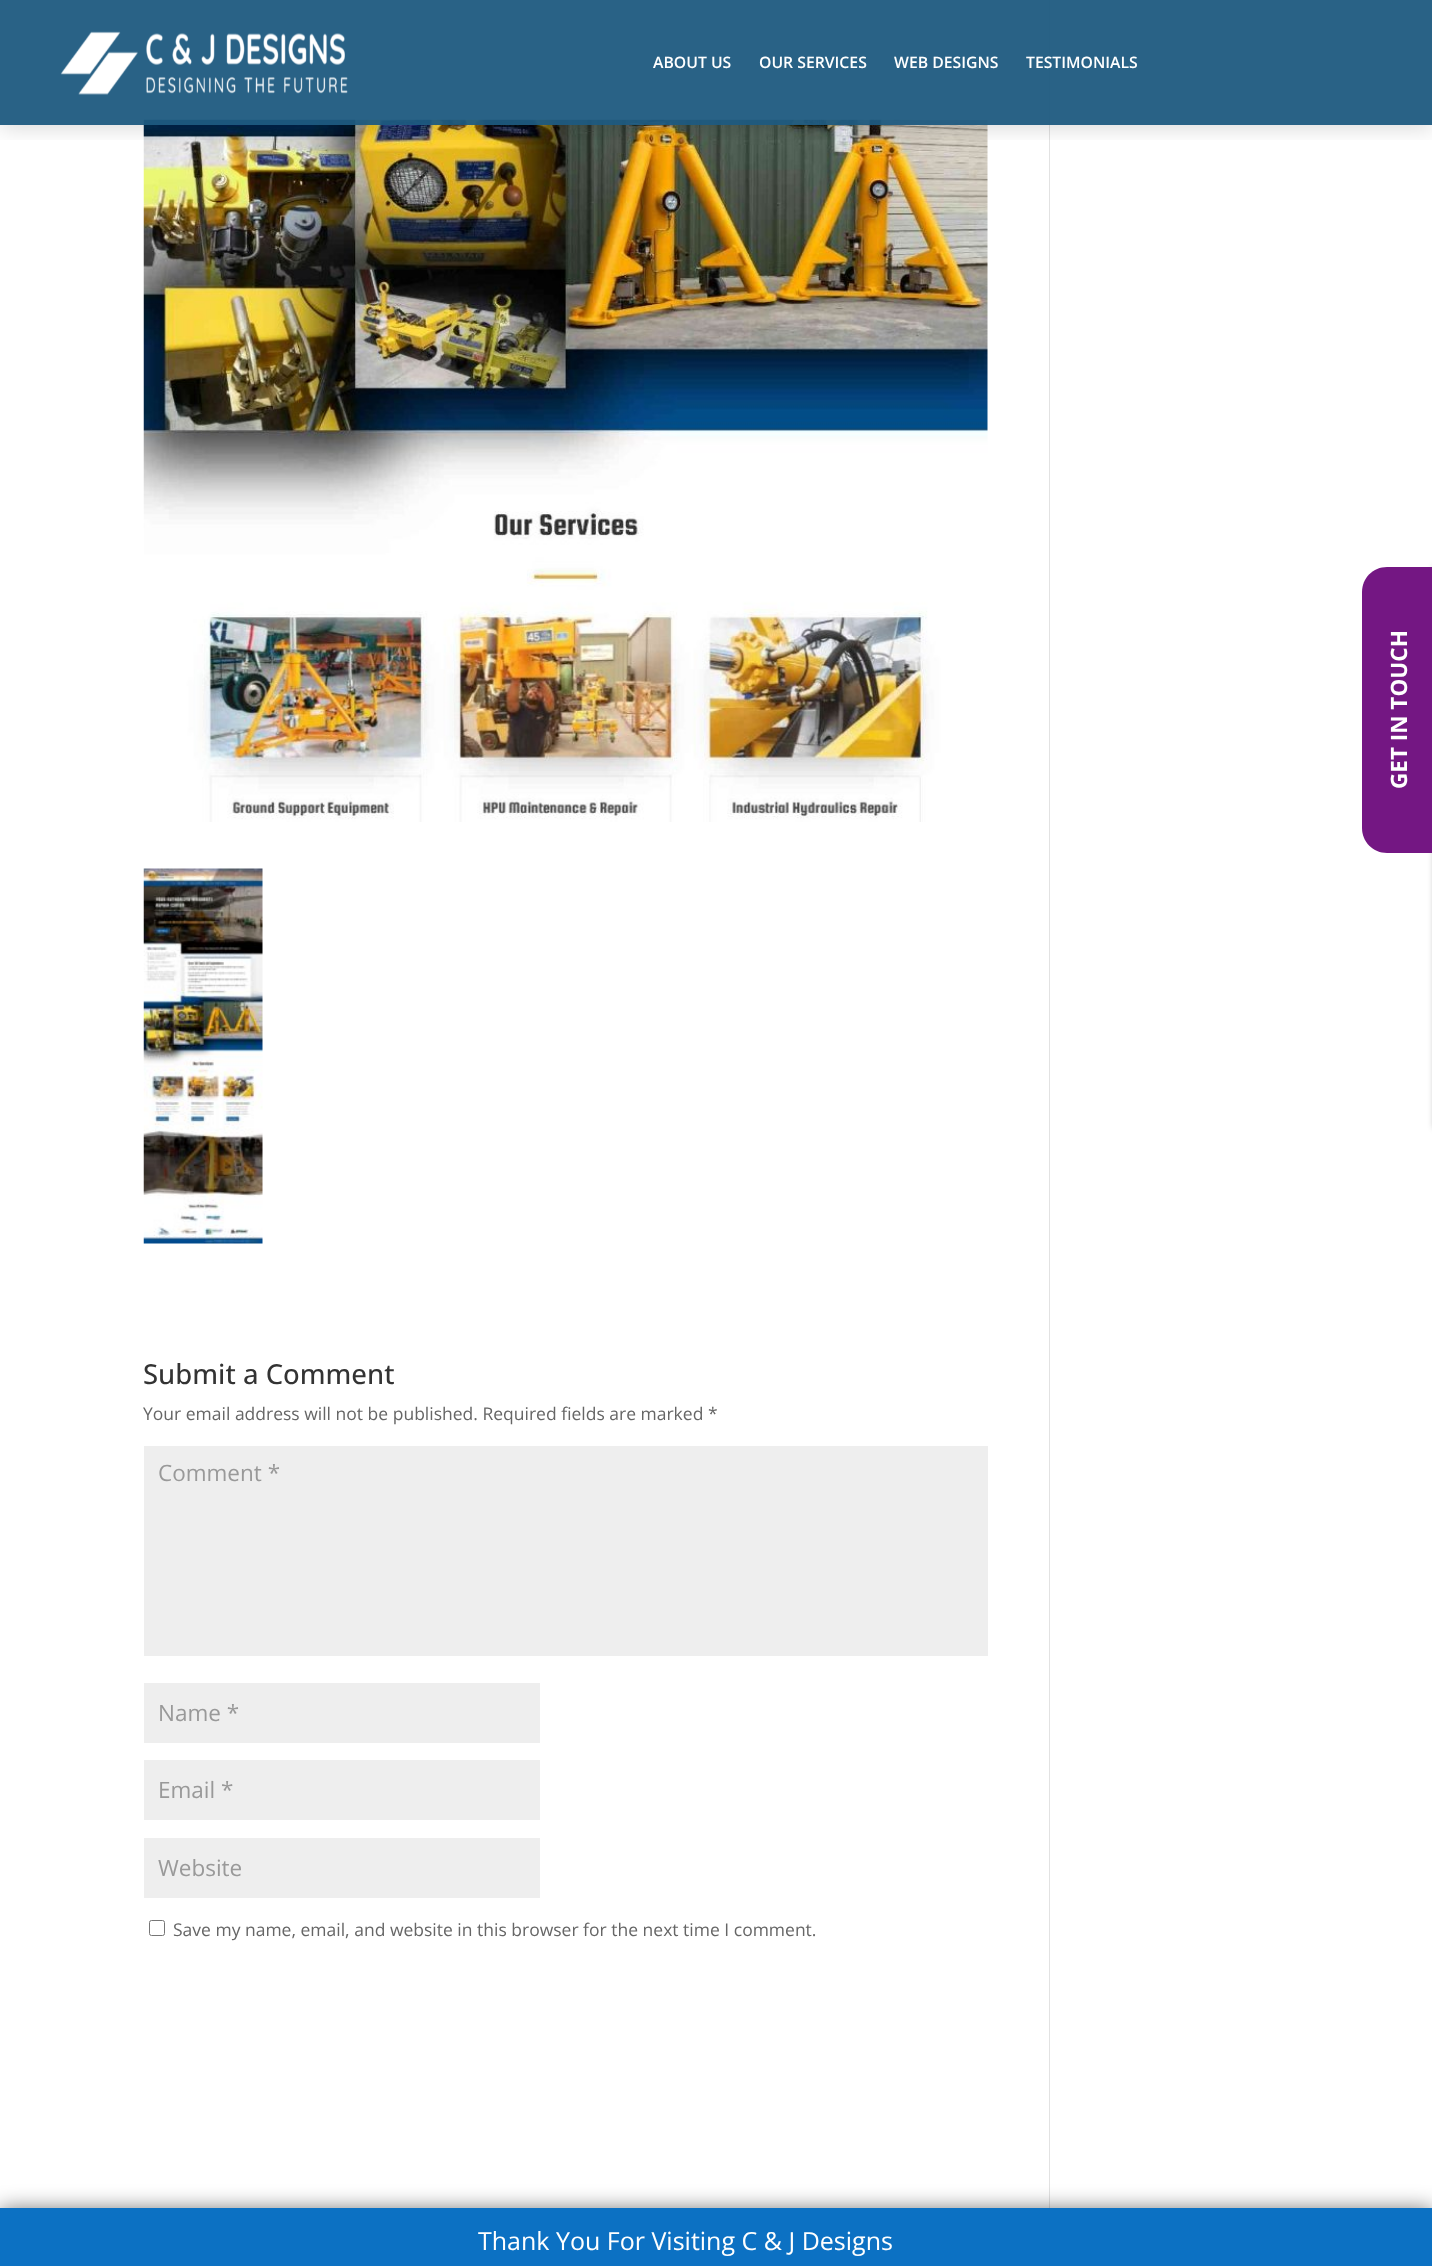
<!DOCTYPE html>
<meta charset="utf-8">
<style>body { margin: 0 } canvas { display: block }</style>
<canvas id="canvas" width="1432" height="2266"></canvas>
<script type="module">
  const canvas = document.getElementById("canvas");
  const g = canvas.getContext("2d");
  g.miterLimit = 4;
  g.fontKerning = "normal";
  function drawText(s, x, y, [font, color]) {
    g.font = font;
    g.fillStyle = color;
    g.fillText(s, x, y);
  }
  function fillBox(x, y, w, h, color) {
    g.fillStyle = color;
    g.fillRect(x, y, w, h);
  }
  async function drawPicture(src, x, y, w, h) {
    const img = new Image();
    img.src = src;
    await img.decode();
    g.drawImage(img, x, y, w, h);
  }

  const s1 = ["600 15.75px Open Sans", "#FFFFFF"];
  const s2 = ["25px Open Sans", "#FFFFFF"];
  const s3 = ["500 27.5px Open Sans", "#333333"];
  const s4 = ["17.5px Open Sans", "#666666"];
  const s5 = ["22.5px Open Sans", "#999999"];

  fillBox(0, 0, 1432, 2266, "#FFFFFF");
  await drawPicture("pic2.png", 143, 119, 845, 703);
  fillBox(1049, 0, 1, 2208, "#E2E2E2");
  g.save();
  g.beginPath();
  g.rect(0, 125, 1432, 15);
  g.clip();
  g.fillStyle = "rgba(0, 0, 0, 0.15)";
  g.filter = "blur(11px)";
  g.beginPath();
  g.rect(0, 3, 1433, 125);
  g.fill();
  g.filter = "none";
  g.restore();
  fillBox(0, 0, 1432, 125, "rgba(29, 90, 128, 0.95)");
  await drawPicture("pic1.png", 60, 31, 288, 64);
  drawText("ABOUT US", 653, 68, s1);
  drawText("OUR SERVICES", 759, 68, s1);
  drawText("WEB DESIGNS", 894, 68, s1);
  drawText("TESTIMONIALS", 1026, 68, s1);
  g.fillStyle = "rgba(0, 0, 0, 0.3)";
  g.filter = "blur(3px)";
  g.beginPath();
  g.rect(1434, 566, 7, 562);
  g.fill();
  g.filter = "none";
  g.fillStyle = "#741783";
  g.beginPath();
  g.moveTo(1362, 828);
  g.lineTo(1362, 592);
  g.bezierCurveTo(1362, 578, 1373, 567, 1387, 567);
  g.lineTo(1432, 567);
  g.lineTo(1432, 853);
  g.lineTo(1387, 853);
  g.bezierCurveTo(1373, 853, 1362, 842, 1362, 828);
  g.closePath();
  g.fill();
  g.font = "bold 22.5px Open Sans";
  g.fillStyle = "#FFFFFF";
  g.save();
  g.translate(1407, 789);
  g.rotate(-90 * Math.PI / 180);
  g.fillText("GET IN TOUCH", 0, 0);
  g.restore();
  g.fillStyle = "rgba(0, 0, 0, 0.6)";
  g.filter = "blur(11px)";
  g.beginPath();
  g.rect(0, 2210, 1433, 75);
  g.fill();
  g.filter = "none";
  fillBox(0, 2208, 1432, 58, "#0C71C3");
  drawText("Thank You For Visiting C & J Designs", 478, 2250, s2);
  await drawPicture("pic3.png", 143, 868, 120, 376);
  drawText("Submit a Comment", 143, 1384, s3);
  drawText("Your email address will not be published. Required fields are marked *", 143, 1420, s4);
  fillBox(144, 1446, 844, 210, "#EEEEEE");
  drawText("Comment *", 158, 1481, s5);
  fillBox(144, 1683, 396, 60, "#EEEEEE");
  drawText("Name *", 158, 1721, s5);
  fillBox(144, 1760, 396, 60, "#EEEEEE");
  drawText("Email *", 158, 1798, s5);
  fillBox(144, 1838, 396, 60, "#EEEEEE");
  drawText("Website", 158, 1876, s5);
  g.beginPath();
  g.roundRect(149.5, 1920.5, 15, 15, 2);
  g.strokeStyle = "#767676";
  g.stroke();
  drawText("Save my name, email, and website in this browser for the next time I comment.", 173, 1936, s4);
</script>
